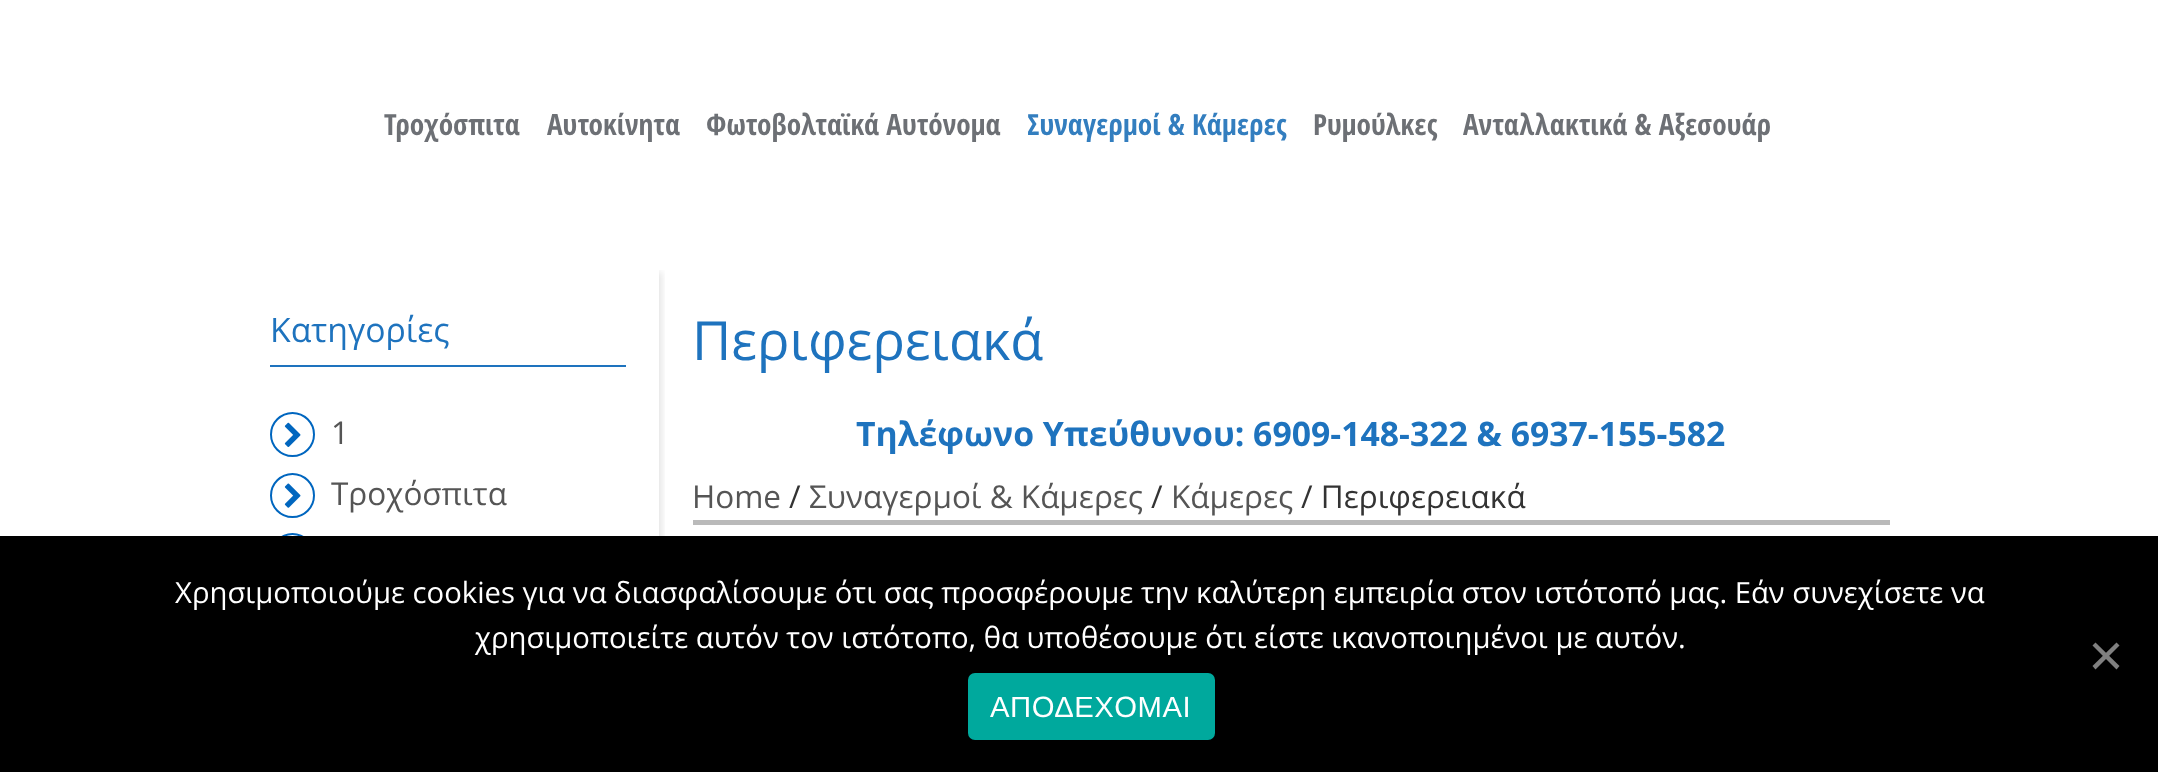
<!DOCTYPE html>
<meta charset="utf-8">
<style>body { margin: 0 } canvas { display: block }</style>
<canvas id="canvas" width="2158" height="772"></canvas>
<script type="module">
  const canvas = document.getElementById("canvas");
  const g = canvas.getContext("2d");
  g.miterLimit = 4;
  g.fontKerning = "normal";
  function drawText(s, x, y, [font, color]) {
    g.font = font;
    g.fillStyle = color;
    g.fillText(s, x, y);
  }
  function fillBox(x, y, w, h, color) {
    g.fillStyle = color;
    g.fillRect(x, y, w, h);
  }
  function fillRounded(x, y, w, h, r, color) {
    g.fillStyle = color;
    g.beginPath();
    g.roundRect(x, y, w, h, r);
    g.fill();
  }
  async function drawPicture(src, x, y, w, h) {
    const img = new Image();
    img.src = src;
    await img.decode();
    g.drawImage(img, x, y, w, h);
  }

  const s1 = ["bold 29.25px Open Sans Condensed", "#6D7075"];
  const s2 = ["bold 29.25px Open Sans Condensed", "#337EBF"];
  const s3 = ["33.75px Open Sans", "#1E73BE"];
  const s4 = ["31.5px Open Sans", "#555555"];
  const s5 = ["54px Open Sans", "#1E73BE"];
  const s6 = ["bold 33.75px Open Sans", "#1E73BE"];
  const s7 = ["31.5px Open Sans", "#333333"];
  const s8 = ["29.25px Open Sans", "#FFFFFF"];
  const s9 = ["29.25px Liberation Sans", "#FFFFFF"];

  fillBox(0, 0, 2158, 772, "#FFFFFF");
  drawText("Τροχόσπιτα", 384, 135, s1);
  drawText("Αυτοκίνητα", 547, 135, s1);
  drawText("Φωτοβολταϊκά Αυτόνομα", 706, 135, s1);
  drawText("Συναγερμοί & Κάμερες", 1027, 135, s2);
  drawText("Ρυμούλκες", 1313, 135, s1);
  drawText("Ανταλλακτικά & Αξεσουάρ", 1463, 135, s1);
  g.save();
  g.beginPath();
  g.rect(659, 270, 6, 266);
  g.clip();
  g.fillStyle = "rgba(0, 0, 0, 0.1)";
  g.filter = "blur(3.5px)";
  g.beginPath();
  g.rect(252, 272, 410, 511);
  g.fill();
  g.filter = "none";
  g.restore();
  fillBox(270, 365, 356, 2, "#1E73BE");
  drawText("Κατηγορίες", 270, 342, s3);
  g.beginPath();
  g.arc(292.5, 434.5, 21.5, 0, Math.PI * 2);
  g.strokeStyle = "#0066BF";
  g.lineWidth = 2;
  g.stroke();
  await drawPicture("pic1.png", 284, 422, 17, 25);
  drawText("1", 331, 444, s4);
  g.beginPath();
  g.arc(292.5, 495.5, 21.5, 0, Math.PI * 2);
  g.stroke();
  await drawPicture("pic2.png", 284, 483, 17, 25);
  drawText("Τροχόσπιτα", 331, 505, s4);
  g.beginPath();
  g.arc(292.5, 555.5, 21.5, 0, Math.PI * 2);
  g.stroke();
  drawText("Περιφερειακά", 692, 360, s5);
  drawText("Τηλέφωνο Υπεύθυνου: 6909-148-322 & 6937-155-582", 856, 446, s6);
  drawText("Home", 692, 508, s4);
  drawText("/", 789, 508, s7);
  drawText("Συναγερμοί & Κάμερες", 809, 508, s4);
  drawText("/", 1151, 508, s7);
  drawText("Κάμερες", 1171, 508, s4);
  drawText("/ Περιφερειακά", 1301, 508, s7);
  fillBox(693, 520, 1197, 5, "#BABABA");
  fillBox(0, 536, 2158, 236, "#000000");
  drawText("Χρησιμοποιούμε cookies για να διασφαλίσουμε ότι σας προσφέρουμε την καλύτερη εμπειρία στον ιστότοπό μας. Εάν συνεχίσετε να", 175, 603, s8);
  drawText("χρησιμοποιείτε αυτόν τον ιστότοπο, θα υποθέσουμε ότι είστε ικανοποιημένοι με αυτόν.", 475, 648, s8);
  g.fillStyle = "#808080";
  g.beginPath();
  g.moveTo(2116.5, 642.5);
  g.lineTo(2119.5, 645.5);
  g.lineTo(2095.5, 669.5);
  g.lineTo(2092.5, 666);
  g.closePath();
  g.fill();
  g.beginPath();
  g.moveTo(2092.5, 645.5);
  g.lineTo(2095.5, 642.5);
  g.lineTo(2119.5, 666);
  g.lineTo(2116.5, 669.5);
  g.closePath();
  g.fill();
  fillRounded(968, 673, 247, 67, 7, "#00A99D");
  g.letterSpacing = "0.5px";
  drawText("ΑΠΟΔΕΧΟΜΑΙ", 990, 717, s9);
</script>
